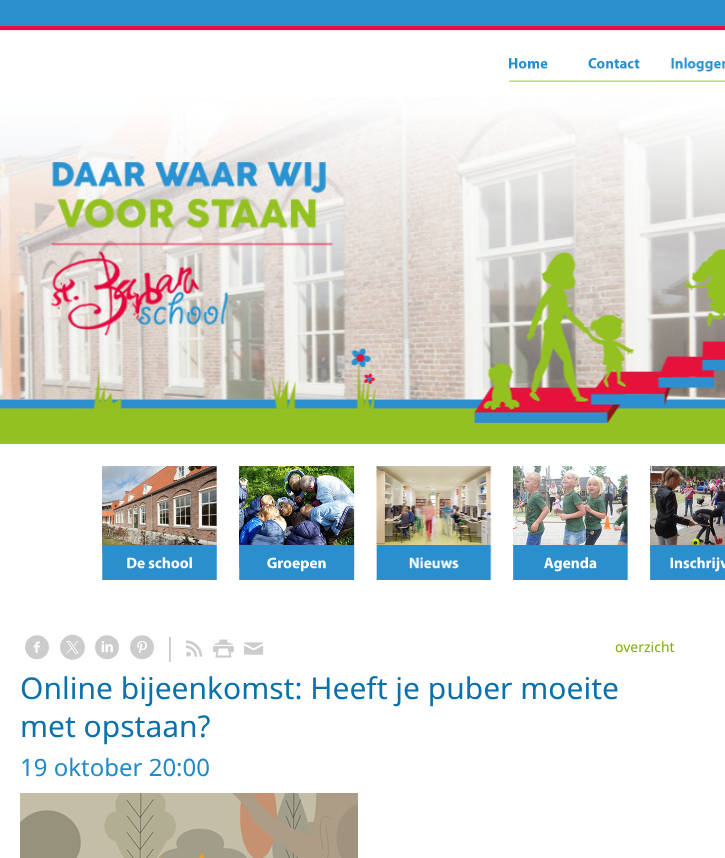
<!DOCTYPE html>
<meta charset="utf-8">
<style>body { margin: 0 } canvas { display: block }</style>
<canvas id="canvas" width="725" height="858"></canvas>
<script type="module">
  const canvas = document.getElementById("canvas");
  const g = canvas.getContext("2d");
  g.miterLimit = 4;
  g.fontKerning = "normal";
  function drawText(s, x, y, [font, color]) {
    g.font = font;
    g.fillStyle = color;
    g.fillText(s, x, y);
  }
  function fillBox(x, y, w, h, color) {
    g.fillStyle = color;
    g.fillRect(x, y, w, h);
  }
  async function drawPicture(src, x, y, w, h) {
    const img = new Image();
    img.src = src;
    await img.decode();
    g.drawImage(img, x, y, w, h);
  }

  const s1 = ["25px Noto Sans", "#CCCCCC"];
  const s2 = ["14px Noto Sans", "#82AF0A"];
  const s3 = ["30px Noto Sans", "#0A71AC"];
  const s4 = ["24px Noto Sans", "#228AC7"];

  fillBox(0, 0, 725, 858, "#FFFFFF");
  await drawPicture("pic1.png", 0, 0, 725, 446);
  await drawPicture("pic2.png", 509, 58, 61, 24);
  await drawPicture("pic3.png", 570, 58, 87, 24);
  await drawPicture("pic4.png", 657, 57, 68, 25);
  await drawPicture("pic5.png", 51, 162, 282, 174);
  await drawPicture("pic6.png", 102, 466, 115, 114);
  await drawPicture("pic7.png", 239, 466, 138, 114);
  await drawPicture("pic8.png", 377, 466, 115, 114);
  await drawPicture("pic9.png", 513, 466, 115, 114);
  await drawPicture("pic10.png", 650, 466, 75, 114);
  await drawPicture("pic11.png", 25, 635, 24, 25);
  await drawPicture("pic12.png", 60, 634, 25, 26);
  await drawPicture("pic13.png", 95, 635, 24, 25);
  await drawPicture("pic14.png", 130, 635, 24, 25);
  drawText("|", 163, 656, s1);
  await drawPicture("pic15.png", 186, 640, 17, 17);
  await drawPicture("pic16.png", 213, 639, 21, 19);
  await drawPicture("pic17.png", 244, 642, 20, 13);
  drawText("overzicht", 615, 652, s2);
  drawText("Online bijeenkomst: Heeft je puber moeite", 20, 699, s3);
  drawText("met opstaan?", 20, 737, s3);
  drawText("19 oktober 20:00", 20, 776, s4);
  await drawPicture("pic18.png", 20, 793, 338, 65);
</script>
